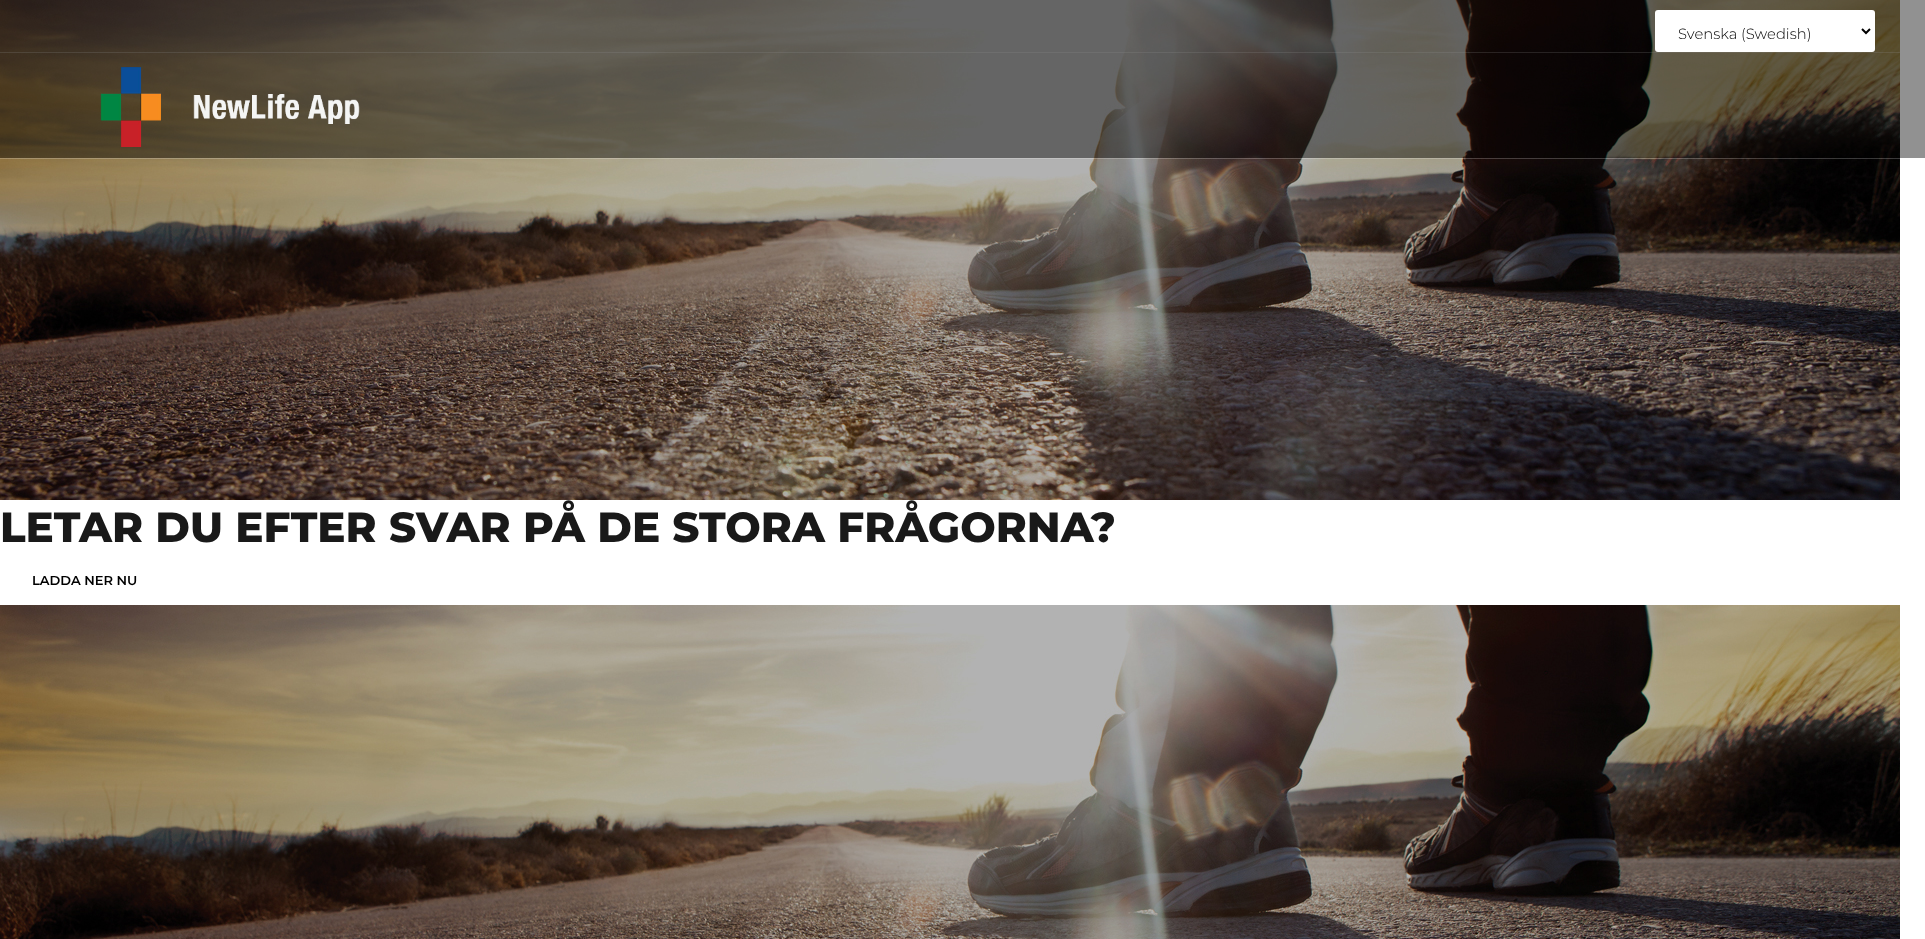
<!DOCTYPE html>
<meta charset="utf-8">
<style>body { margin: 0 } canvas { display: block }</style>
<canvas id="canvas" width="1925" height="939"></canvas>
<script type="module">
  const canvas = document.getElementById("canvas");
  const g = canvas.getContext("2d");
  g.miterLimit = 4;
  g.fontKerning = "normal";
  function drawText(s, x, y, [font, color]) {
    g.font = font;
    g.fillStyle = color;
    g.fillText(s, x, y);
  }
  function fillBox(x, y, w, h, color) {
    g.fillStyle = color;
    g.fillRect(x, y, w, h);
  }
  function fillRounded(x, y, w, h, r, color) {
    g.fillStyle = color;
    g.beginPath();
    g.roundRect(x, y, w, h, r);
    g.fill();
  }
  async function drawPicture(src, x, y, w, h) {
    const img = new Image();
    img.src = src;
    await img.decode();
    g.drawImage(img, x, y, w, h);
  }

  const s1 = ["300 14.75px Montserrat", "#000000"];
  const s2 = ["800 42px Montserrat", "#191919"];
  const s3 = ["600 13px Montserrat", "#000000"];

  fillBox(0, 0, 1925, 939, "#FFFFFF");
  await drawPicture("pic2.png", 0, 0, 1900, 500);
  fillBox(0, 0, 1925, 52, "rgba(0, 0, 0, 0.43)");
  fillBox(0, 52, 1900, 1, "rgba(255, 255, 255, 0.21)");
  fillRounded(1655, 10, 220, 42, 3, "#FFFFFF");
  g.beginPath();
  g.moveTo(1862, 29);
  g.lineTo(1866, 33);
  g.lineTo(1870, 29);
  g.strokeStyle = "#000000";
  g.lineWidth = 2;
  g.stroke();
  drawText("Svenska (Swedish)", 1678, 39, s1);
  fillBox(0, 52, 1925, 106, "rgba(0, 0, 0, 0.43)");
  fillBox(0, 158, 1900, 1, "rgba(255, 255, 255, 0.21)");
  await drawPicture("pic1.png", 100, 67, 260, 80);
  drawText("LETAR DU EFTER SVAR PÅ DE STORA FRÅGORNA?", 0, 542, s2);
  drawText("LADDA NER NU", 32, 585, s3);
  await drawPicture("pic3.png", 0, 605, 1900, 334);
</script>
